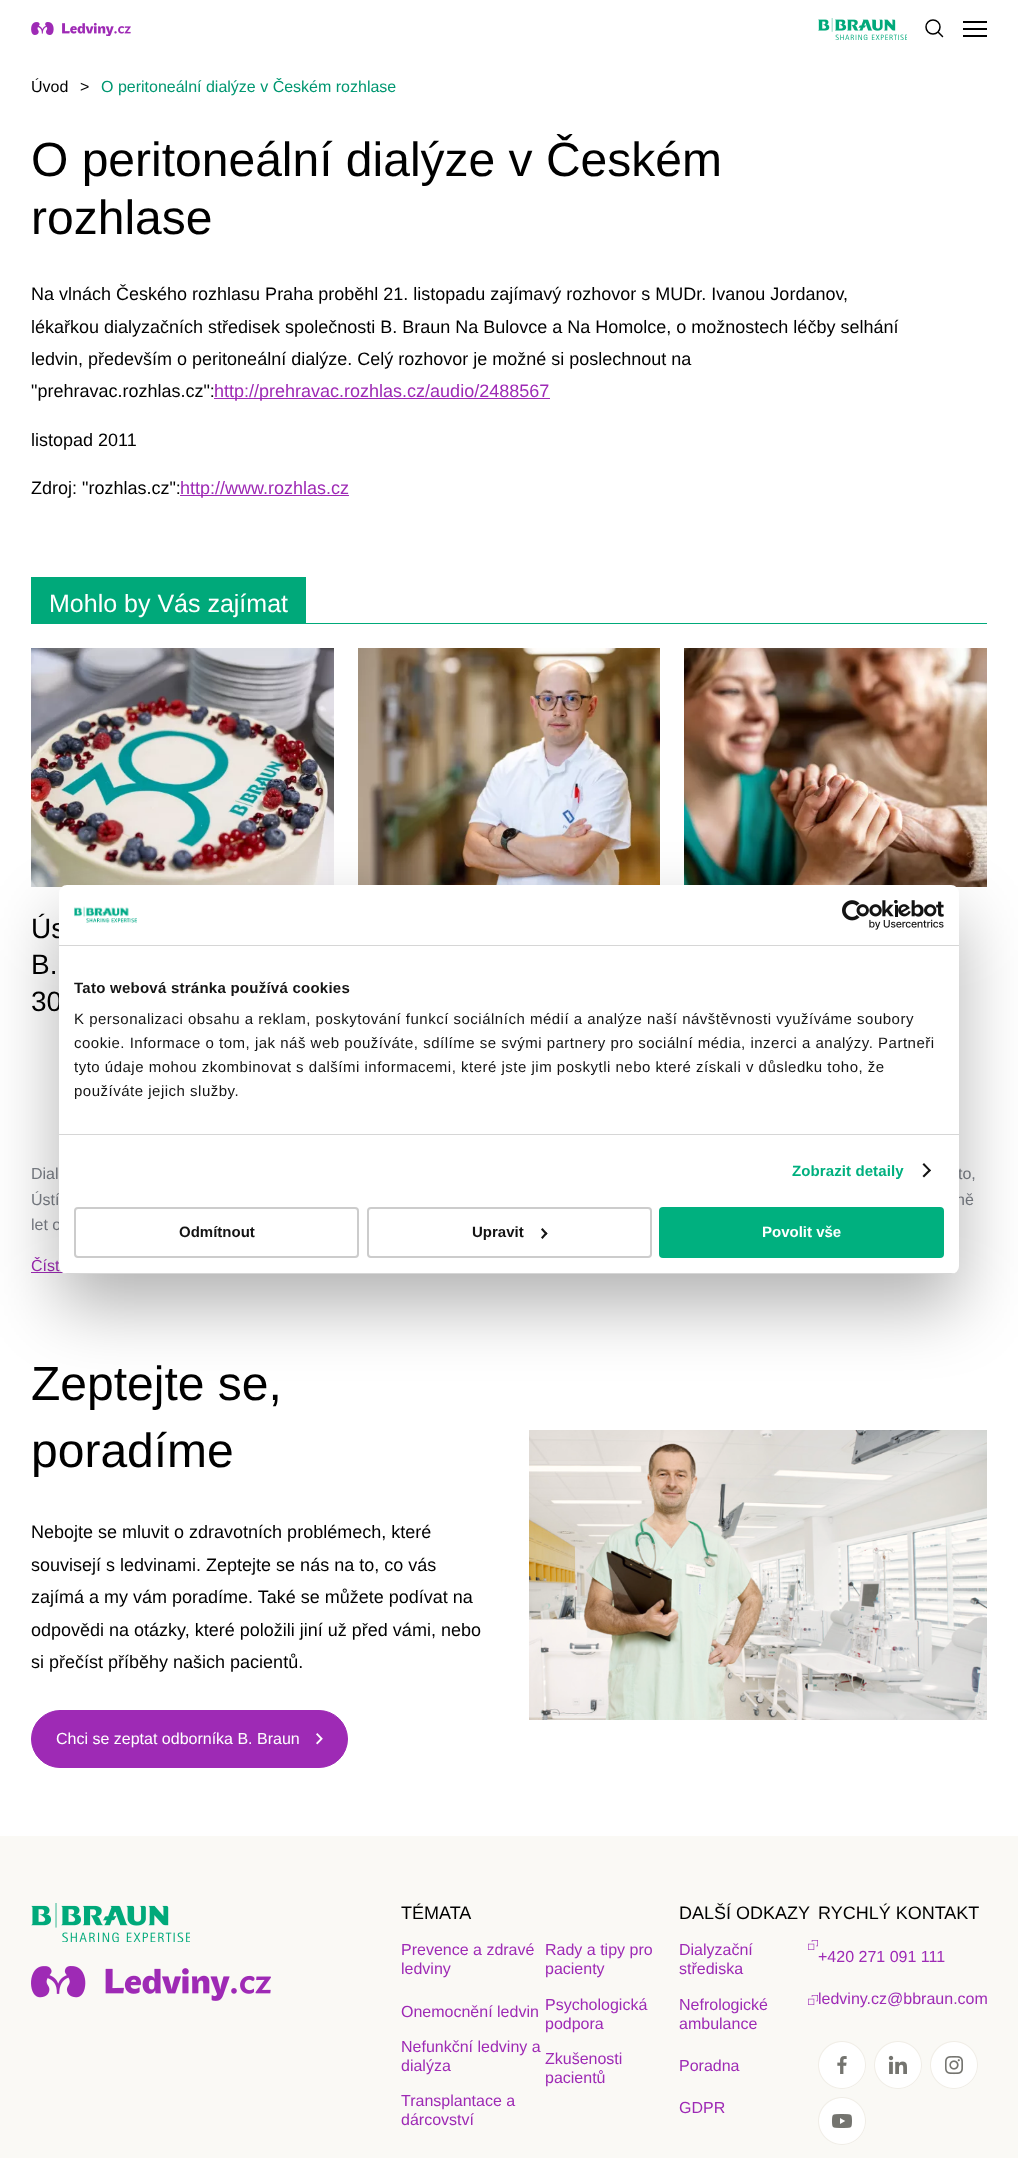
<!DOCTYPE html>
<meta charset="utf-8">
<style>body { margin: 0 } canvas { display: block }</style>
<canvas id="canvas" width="1018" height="2158"></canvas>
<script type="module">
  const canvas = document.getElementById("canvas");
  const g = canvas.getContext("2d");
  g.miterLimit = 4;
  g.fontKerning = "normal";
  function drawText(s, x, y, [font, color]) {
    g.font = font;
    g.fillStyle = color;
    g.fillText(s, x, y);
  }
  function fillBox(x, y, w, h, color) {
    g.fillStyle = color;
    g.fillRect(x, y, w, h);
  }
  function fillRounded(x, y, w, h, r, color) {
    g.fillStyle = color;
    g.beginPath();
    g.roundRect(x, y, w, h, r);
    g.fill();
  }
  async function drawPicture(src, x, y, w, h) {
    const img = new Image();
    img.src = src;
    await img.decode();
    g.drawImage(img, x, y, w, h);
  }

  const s1 = ["16px Liberation Sans", "#000000"];
  const s2 = ["16px Liberation Sans", "#009771"];
  const s3 = ["48px Liberation Sans", "#000000"];
  const s4 = ["18px Liberation Sans", "#000000"];
  const s5 = ["18px Liberation Sans", "#9E2AB5"];
  const s6 = ["25px Liberation Sans", "#FFFFFF"];
  const s7 = ["28px Liberation Sans", "#000000"];
  const s8 = ["16px Liberation Sans", "#7C8088"];
  const s9 = ["16px Liberation Sans", "#9E2AB5"];
  const s10 = ["16px Liberation Sans", "#FFFFFF"];
  const s11 = ["bold 15px Liberation Sans", "#141414"];
  const s12 = ["15px Liberation Sans", "#141414"];
  const s13 = ["bold 15px Liberation Sans", "#00B07F"];
  const s14 = ["bold 15px Liberation Sans", "#FFFFFF"];

  fillBox(0, 0, 1018, 2158, "#FFFFFF");
  await drawPicture("pic1.png", 31, 22, 100, 14);
  await drawPicture("pic2.png", 818, 18, 89, 22);
  g.beginPath();
  g.arc(933, 27, 7, 0, Math.PI * 2);
  g.strokeStyle = "#000000";
  g.lineWidth = 1.5;
  g.stroke();
  g.beginPath();
  g.moveTo(938.5, 32.5);
  g.lineTo(942.5, 36.5);
  g.lineCap = "round";
  g.stroke();
  await drawPicture("pic3.png", 963, 21, 24, 16);
  drawText("Úvod", 31, 92, s1);
  drawText(">", 80, 92, s1);
  drawText("O peritoneální dialýze v Českém rozhlase", 101, 92, s2);
  drawText("O peritoneální dialýze v Českém", 31, 176, s3);
  drawText("rozhlase", 31, 234, s3);
  drawText("Na vlnách Českého rozhlasu Praha proběhl 21. listopadu zajímavý rozhovor s MUDr. Ivanou Jordanov,", 31, 300, s4);
  drawText("lékařkou dialyzačních středisek společnosti B. Braun Na Bulovce a Na Homolce, o možnostech léčby selhání", 31, 333, s4);
  drawText("ledvin, především o peritoneální dialýze. Celý rozhovor je možné si poslechnout na", 31, 365, s4);
  drawText("\"prehravac.rozhlas.cz\":", 31, 397, s4);
  fillBox(214, 398, 336, 1, "#9E2AB5");
  drawText("http://prehravac.rozhlas.cz/audio/2488567", 214, 397, s5);
  drawText("listopad 2011", 31, 446, s4);
  drawText("Zdroj: \"rozhlas.cz\":", 31, 494, s4);
  fillBox(180, 495, 169, 1, "#9E2AB5");
  drawText("http://www.rozhlas.cz", 180, 494, s5);
  fillBox(31, 623, 956, 1, "#00A97A");
  fillBox(31, 577, 275, 46, "#00A97A");
  drawText("Mohlo by Vás zajímat", 49, 612, s6);
  await drawPicture("pic4.png", 358, 648, 302, 237);
  await drawPicture("pic5.png", 31, 648, 303, 239);
  drawText("Ús", 31, 938, s7);
  drawText("B.", 31, 974, s7);
  drawText("30", 31, 1011, s7);
  drawText("Dial", 31, 1179, s8);
  drawText("Ústí", 31, 1205, s8);
  drawText("let o", 31, 1230, s8);
  drawText("Číst", 31, 1271, s9);
  fillBox(31, 1272, 33, 1, "#9E2AB5");
  await drawPicture("pic6.png", 684, 648, 303, 239);
  drawText("to,", 958, 1179, s8);
  drawText("ně", 956, 1205, s8);
  drawText("Zeptejte se,", 31, 1400, s3);
  drawText("poradíme", 31, 1467, s3);
  drawText("Nebojte se mluvit o zdravotních problémech, které", 31, 1538, s4);
  drawText("souvisejí s ledvinami. Zeptejte se nás na to, co vás", 31, 1571, s4);
  drawText("zajímá a my vám poradíme. Také se můžete podívat na", 31, 1603, s4);
  drawText("odpovědi na otázky, které položili jiní už před vámi, nebo", 31, 1636, s4);
  drawText("si přečíst příběhy našich pacientů.", 31, 1668, s4);
  g.fillStyle = "#9E2AB5";
  g.beginPath();
  g.roundRect(31.5, 1710.5, 316, 57, 28.5);
  g.fill();
  g.strokeStyle = "#9E2AB5";
  g.lineWidth = 1;
  g.stroke();
  drawText("Chci se zeptat odborníka B. Braun", 56, 1744, s10);
  await drawPicture("pic7.png", 316, 1733, 7, 12);
  await drawPicture("pic8.png", 529, 1430, 458, 290);
  fillBox(0, 1836, 1018, 322, "#FAF9F5");
  await drawPicture("pic9.png", 31, 1903, 159, 39);
  await drawPicture("pic10.png", 31, 1966, 240, 35);
  drawText("TÉMATA", 401, 1919, s4);
  drawText("Prevence a zdravé", 401, 1955, s9);
  drawText("ledviny", 401, 1974, s9);
  drawText("Onemocnění ledvin", 401, 2017, s9);
  drawText("Nefunkční ledviny a", 401, 2052, s9);
  drawText("dialýza", 401, 2071, s9);
  drawText("Transplantace a", 401, 2106, s9);
  drawText("dárcovství", 401, 2125, s9);
  drawText("Rady a tipy pro", 545, 1955, s9);
  drawText("pacienty", 545, 1974, s9);
  drawText("Psychologická", 545, 2010, s9);
  drawText("podpora", 545, 2029, s9);
  drawText("Zkušenosti", 545, 2064, s9);
  drawText("pacientů", 545, 2083, s9);
  drawText("DALŠÍ ODKAZY", 679, 1919, s4);
  await drawPicture("pic11.png", 808, 1940, 10, 10);
  drawText("Dialyzační", 679, 1955, s9);
  drawText("střediska", 679, 1974, s9);
  await drawPicture("pic11.png", 808, 1995, 10, 10);
  drawText("Nefrologické", 679, 2010, s9);
  drawText("ambulance", 679, 2029, s9);
  drawText("Poradna", 679, 2071, s9);
  drawText("GDPR", 679, 2113, s9);
  drawText("RYCHLÝ KONTAKT", 818, 1919, s4);
  drawText("+420 271 091 111", 818, 1962, s9);
  drawText("ledviny.cz@bbraun.com", 818, 2004, s9);
  await drawPicture("pic12.png", 818, 2041, 48, 48);
  await drawPicture("pic13.png", 874, 2041, 48, 48);
  await drawPicture("pic14.png", 930, 2041, 48, 48);
  await drawPicture("pic15.png", 818, 2097, 48, 48);
  g.fillStyle = "rgba(0, 0, 0, 0.3)";
  g.filter = "blur(34px)";
  g.beginPath();
  g.roundRect(59, 917, 900, 389, 8);
  g.fill();
  g.filter = "none";
  fillRounded(59, 885, 900, 389, 8, "#FFFFFF");
  fillBox(59, 945, 900, 1, "#D6D6D6");
  await drawPicture("pic16.png", 74, 906, 63, 17);
  await drawPicture("pic17.png", 842, 900, 102, 30);
  fillBox(59, 1134, 900, 1, "#D6D6D6");
  g.letterSpacing = "0.25px";
  drawText("Tato webová stránka používá cookies", 74, 993, s11);
  g.letterSpacing = "0.5px";
  drawText("K personalizaci obsahu a reklam, poskytování funkcí sociálních médií a analýze naší návštěvnosti využíváme soubory", 74, 1024, s12);
  drawText("cookie. Informace o tom, jak náš web používáte, sdílíme se svými partnery pro sociální média, inzerci a analýzy. Partneři", 74, 1048, s12);
  drawText("tyto údaje mohou zkombinovat s dalšími informacemi, které jste jim poskytli nebo které získali v důsledku toho, že", 74, 1072, s12);
  drawText("používáte jejich služby.", 74, 1096, s12);
  g.letterSpacing = "0.1px";
  drawText("Zobrazit detaily", 792, 1176, s13);
  g.fillStyle = "#141414";
  g.beginPath();
  g.moveTo(924, 1163);
  g.lineTo(931, 1170.5);
  g.lineTo(929.5, 1171.5);
  g.lineTo(922.5, 1164.5);
  g.closePath();
  g.fill();
  g.beginPath();
  g.moveTo(929.5, 1169);
  g.lineTo(931, 1170.5);
  g.lineTo(924, 1177.5);
  g.lineTo(922.5, 1176);
  g.closePath();
  g.fill();
  g.save();
  g.beginPath();
  g.roundRect(59, 885, 900, 389, 8);
  g.clip();
  fillBox(59, 1273, 900, 1, "#D6D6D6");
  g.restore();
  g.beginPath();
  g.roundRect(75, 1208, 283, 49, 3);
  g.strokeStyle = "#CCCCCC";
  g.lineWidth = 2;
  g.stroke();
  g.letterSpacing = "0px";
  drawText("Odmítnout", 179, 1237, s11);
  g.beginPath();
  g.roundRect(368, 1208, 283, 49, 3);
  g.stroke();
  drawText("Upravit", 472, 1237, s11);
  g.beginPath();
  g.moveTo(542.5, 1228);
  g.lineTo(547.5, 1233.5);
  g.lineTo(546, 1235);
  g.lineTo(541, 1229.5);
  g.closePath();
  g.fill();
  g.beginPath();
  g.moveTo(546, 1232);
  g.lineTo(547.5, 1233.5);
  g.lineTo(542.5, 1239);
  g.lineTo(541, 1237.5);
  g.closePath();
  g.fill();
  g.fillStyle = "#00B07F";
  g.beginPath();
  g.roundRect(660, 1208, 283, 49, 3);
  g.fill();
  g.strokeStyle = "#00B07F";
  g.stroke();
  drawText("Povolit vše", 762, 1237, s14);
</script>
